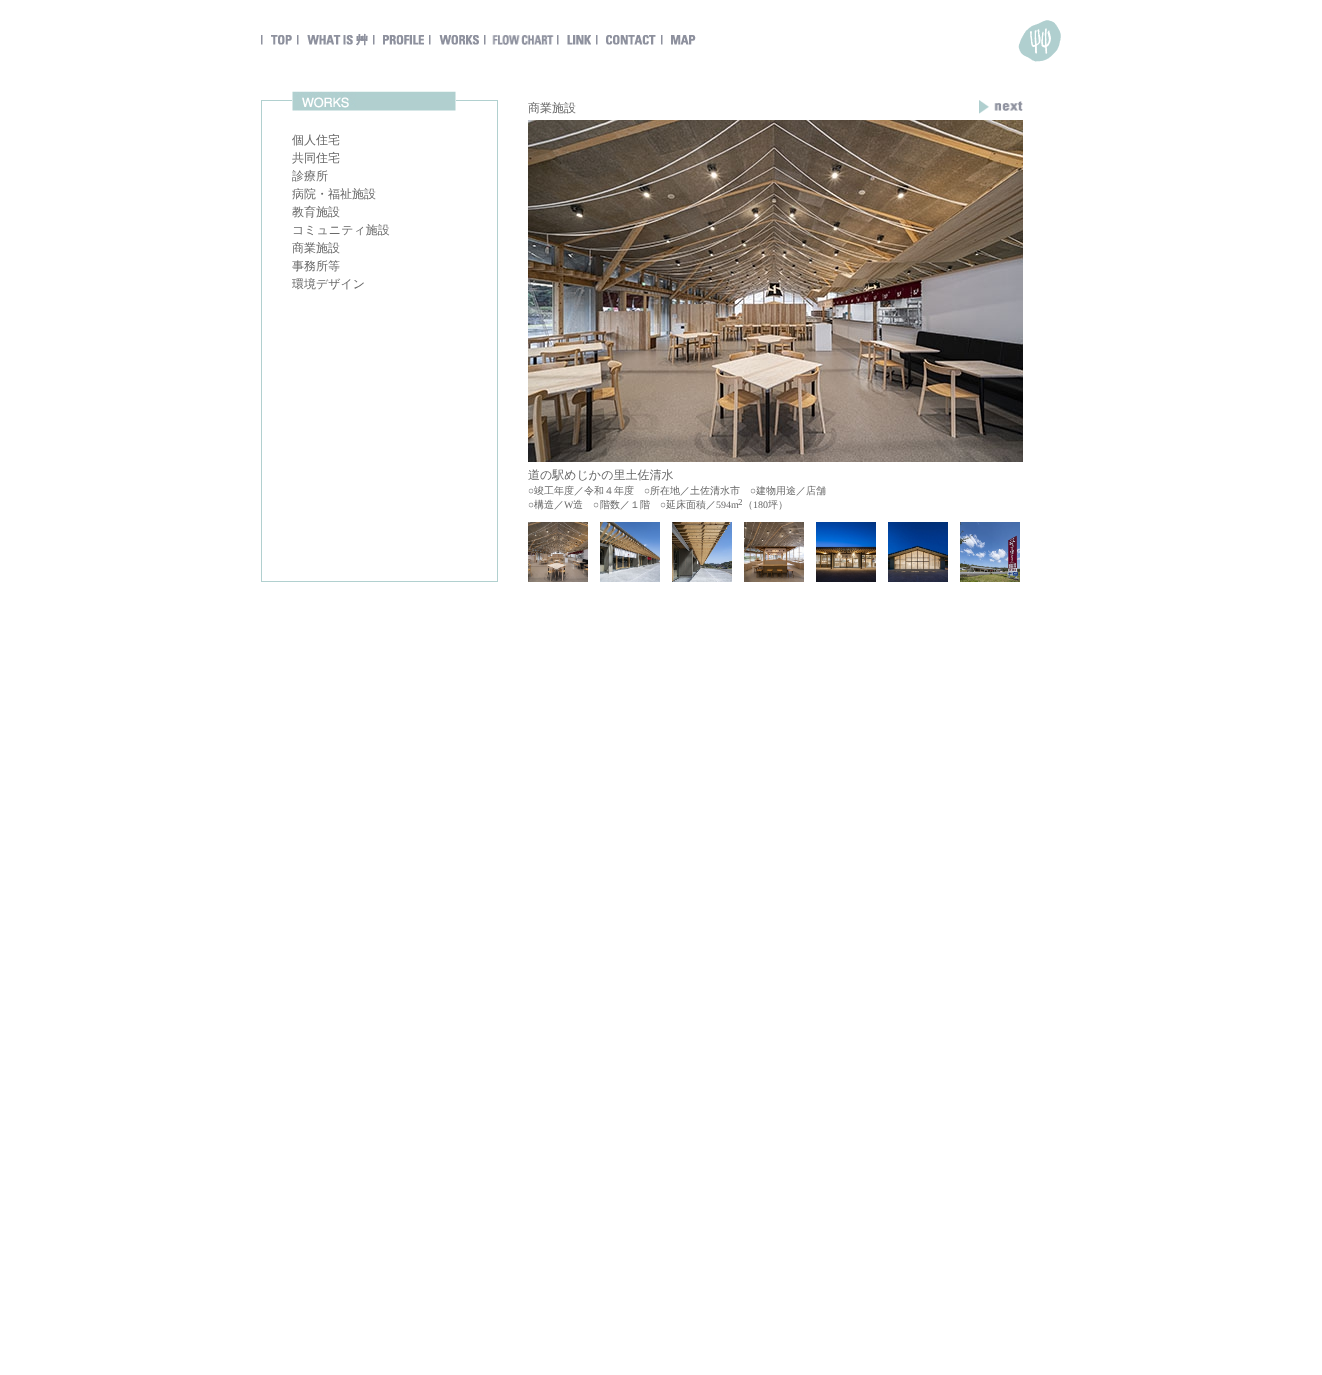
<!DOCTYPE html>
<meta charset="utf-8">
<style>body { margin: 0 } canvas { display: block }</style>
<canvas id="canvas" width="1322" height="1375"></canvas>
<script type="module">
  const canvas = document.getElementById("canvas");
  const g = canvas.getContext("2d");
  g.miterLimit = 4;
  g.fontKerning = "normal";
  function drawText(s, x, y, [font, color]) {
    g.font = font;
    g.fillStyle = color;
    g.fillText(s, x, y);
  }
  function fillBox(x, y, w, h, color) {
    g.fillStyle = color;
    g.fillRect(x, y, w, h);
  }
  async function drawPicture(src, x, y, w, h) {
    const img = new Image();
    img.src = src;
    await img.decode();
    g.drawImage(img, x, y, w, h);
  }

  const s1 = ["500 12px WenQuanYi Zen Hei", "#696969"];
  const s2 = ["10px Liberation Serif", "#696969"];
  const s3 = ["500 10px WenQuanYi Zen Hei", "#696969"];
  const s4 = ["9px Liberation Serif", "#696969"];

  fillBox(0, 0, 1322, 1375, "#FFFFFF");
  await drawPicture("pic1.png", 261, 35, 2, 10);
  await drawPicture("pic2.png", 271, 35, 21, 10);
  await drawPicture("pic1.png", 297, 35, 2, 10);
  await drawPicture("pic3.png", 307, 33, 61, 13);
  await drawPicture("pic1.png", 373, 35, 2, 10);
  await drawPicture("pic4.png", 383, 35, 41, 10);
  await drawPicture("pic1.png", 429, 35, 2, 10);
  await drawPicture("pic5.png", 439, 35, 40, 10);
  await drawPicture("pic1.png", 484, 35, 2, 10);
  await drawPicture("pic6.png", 492, 35, 62, 10);
  await drawPicture("pic1.png", 557, 35, 2, 10);
  await drawPicture("pic7.png", 567, 35, 24, 10);
  await drawPicture("pic1.png", 596, 35, 2, 10);
  await drawPicture("pic8.png", 606, 35, 50, 10);
  await drawPicture("pic1.png", 661, 35, 2, 10);
  await drawPicture("pic9.png", 671, 35, 25, 10);
  await drawPicture("pic10.png", 1018, 20, 43, 42);
  g.strokeStyle = "#B1D0CF";
  g.strokeRect(261.5, 100.5, 236, 481);
  await drawPicture("pic11.png", 292, 91, 164, 20);
  drawText("個人住宅", 292, 144, s1);
  drawText("共同住宅", 292, 162, s1);
  drawText("診療所", 292, 180, s1);
  drawText("病院・福祉施設", 292, 198, s1);
  drawText("教育施設", 292, 216, s1);
  drawText("コミュニティ施設", 292, 234, s1);
  drawText("商業施設", 292, 252, s1);
  drawText("事務所等", 292, 270, s1);
  drawText("環境デザイン", 292, 288, s1);
  drawText("商業施設", 528, 112, s1);
  await drawPicture("pic12.png", 979, 100, 44, 14);
  await drawPicture("pic13.png", 528, 120, 495, 342);
  drawText("道の駅めじかの里土佐清水", 528, 479, s1);
  drawText("○", 528, 494, s2);
  drawText("竣工年度／令和４年度", 534, 494, s3);
  drawText("○", 644, 494, s2);
  drawText("所在地／土佐清水市", 650, 494, s3);
  drawText("○", 750, 494, s2);
  drawText("建物用途／店舗", 756, 494, s3);
  drawText("○", 528, 508, s2);
  drawText("構造／", 534, 508, s3);
  drawText("W", 564, 508, s2);
  drawText("造", 573, 508, s3);
  drawText("○", 593, 508, s2);
  drawText("階数／１階", 600, 508, s3);
  drawText("○", 660, 508, s2);
  drawText("延床面積／", 666, 508, s3);
  drawText("594m", 716, 508, s2);
  drawText("2", 738, 505, s4);
  drawText("（", 743, 508, s3);
  drawText("180", 753, 508, s2);
  drawText("坪）", 768, 508, s3);
  await drawPicture("pic14.png", 528, 522, 60, 60);
  await drawPicture("pic15.png", 600, 522, 60, 60);
  await drawPicture("pic16.png", 672, 522, 60, 60);
  await drawPicture("pic17.png", 744, 522, 60, 60);
  await drawPicture("pic18.png", 816, 522, 60, 60);
  await drawPicture("pic19.png", 888, 522, 60, 60);
  await drawPicture("pic20.png", 960, 522, 60, 60);
</script>
